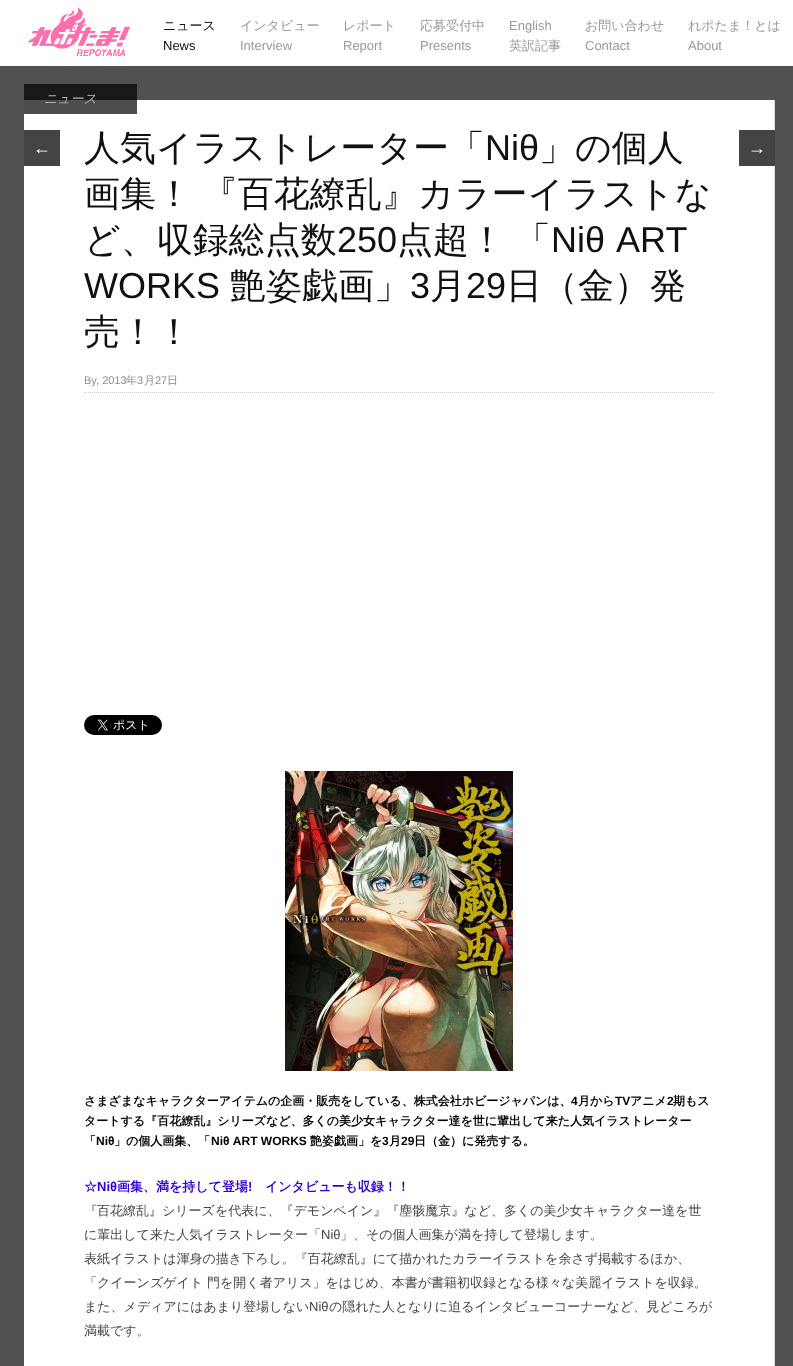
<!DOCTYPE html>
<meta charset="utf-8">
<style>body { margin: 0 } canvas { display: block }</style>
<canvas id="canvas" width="793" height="1366"></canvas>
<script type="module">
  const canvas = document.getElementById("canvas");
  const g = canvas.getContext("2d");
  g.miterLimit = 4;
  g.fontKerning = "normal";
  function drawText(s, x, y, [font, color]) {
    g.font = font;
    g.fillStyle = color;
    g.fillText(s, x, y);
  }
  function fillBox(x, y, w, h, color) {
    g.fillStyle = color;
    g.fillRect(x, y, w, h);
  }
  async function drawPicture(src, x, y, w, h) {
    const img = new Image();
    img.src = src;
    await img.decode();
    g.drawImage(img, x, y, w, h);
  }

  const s1 = ["500 13px WenQuanYi Zen Hei", "#111111"];
  const s2 = ["13px Liberation Sans", "#111111"];
  const s3 = ["500 13px WenQuanYi Zen Hei", "#999999"];
  const s4 = ["13px Liberation Sans", "#999999"];
  const s5 = ["italic 500 13px WenQuanYi Zen Hei", "#AFAFAF"];
  const s6 = ["500 36px WenQuanYi Zen Hei", "#111111"];
  const s7 = ["36px Liberation Sans", "#111111"];
  const s8 = ["11px Liberation Sans", "#8E8E8E"];
  const s9 = ["500 11px WenQuanYi Zen Hei", "#8E8E8E"];
  const s10 = ["bold 12px WenQuanYi Zen Hei", "#000000"];
  const s11 = ["bold 12px Liberation Sans", "#000000"];
  const s12 = ["bold 13px WenQuanYi Zen Hei", "#3300CC"];
  const s13 = ["bold 13px Liberation Sans", "#3300CC"];
  const s14 = ["500 13px WenQuanYi Zen Hei", "#454545"];
  const s15 = ["13px Liberation Sans", "#454545"];
  const s16 = ["18px Liberation Sans", "#FFFFFF"];

  fillBox(0, 0, 793, 1366, "#515151");
  fillBox(24, 84, 113, 16, "#181818");
  fillBox(0, 0, 793, 66, "#FFFFFF");
  await drawPicture("pic1.png", 27, 7, 103, 49);
  drawText("ニュース", 163, 30, s1);
  drawText("News", 163, 50, s2);
  drawText("インタビュー", 240, 30, s3);
  drawText("Interview", 240, 50, s4);
  drawText("レポート", 343, 30, s3);
  drawText("Report", 343, 50, s4);
  drawText("応募受付中", 420, 30, s3);
  drawText("Presents", 420, 50, s4);
  drawText("English", 509, 30, s4);
  drawText("英訳記事", 509, 50, s3);
  drawText("お問い合わせ", 585, 30, s3);
  drawText("Contact", 585, 50, s4);
  drawText("れポたま！とは", 688, 30, s3);
  drawText("About", 688, 50, s4);
  fillBox(24, 100, 750, 1266, "#FFFFFF");
  fillBox(24, 100, 113, 14, "#4D4D4D");
  fillBox(774, 100, 1, 1266, "#DBDBDB");
  drawText("ニュース", 44, 103, s5);
  drawText("人気イラストレーター「", 84, 160, s6);
  drawText("Niθ", 485, 160, s7);
  drawText("」の個人", 539, 160, s6);
  g.wordSpacing = "-1px";
  drawText("画集！ 『百花繚乱』カラーイラストな", 84, 206, s6);
  g.wordSpacing = "0px";
  drawText("ど、収録総点数", 84, 252, s6);
  drawText("250", 337, 252, s7);
  drawText("点超！", 397, 252, s6);
  drawText("「", 515, 252, s6);
  g.wordSpacing = "1px";
  drawText("Niθ ART", 551, 252, s7);
  g.wordSpacing = "0px";
  drawText("WORKS", 84, 298, s7);
  drawText("艶姿戯画」", 230, 298, s6);
  drawText("3", 410, 298, s7);
  drawText("月", 430, 298, s6);
  drawText("29", 466, 298, s7);
  drawText("日（金）発", 506, 298, s6);
  drawText("売！！", 84, 344, s6);
  g.beginPath();
  g.moveTo(84, 392.5);
  g.lineTo(714, 392.5);
  g.strokeStyle = "#CCCCCC";
  g.setLineDash([1, 1]);
  g.stroke();
  drawText("By, 2013", 84, 384, s8);
  drawText("年", 126, 384, s9);
  drawText("3", 137, 384, s8);
  drawText("月", 144, 384, s9);
  drawText("27", 155, 384, s8);
  drawText("日", 167, 384, s9);
  await drawPicture("pic2.png", 84, 715, 78, 20);
  await drawPicture("pic3.png", 285, 771, 228, 300);
  drawText("さまざまなキャラクターアイテムの企画・販売をしている、株式会社ホビージャパンは、", 84, 1105, s10);
  drawText("4", 571, 1105, s11);
  drawText("月から", 578, 1105, s10);
  drawText("TV", 615, 1105, s11);
  drawText("アニメ", 630, 1105, s10);
  drawText("2", 667, 1105, s11);
  drawText("期もス", 673, 1105, s10);
  drawText("タートする『百花繚乱』シリーズなど、多くの美少女キャラクター達を世に輩出して来た人気イラストレーター", 84, 1125, s10);
  drawText("「", 84, 1145, s10);
  drawText("Niθ", 96, 1145, s11);
  drawText("」の個人画集、「", 114, 1145, s10);
  drawText("Niθ ART WORKS", 211, 1145, s11);
  drawText("艶姿戯画」を", 310, 1145, s10);
  drawText("3", 382, 1145, s11);
  drawText("月", 389, 1145, s10);
  drawText("29", 401, 1145, s11);
  drawText("日（金）に発売する。", 414, 1145, s10);
  drawText("☆", 84, 1191, s12);
  drawText("Niθ", 97, 1191, s13);
  drawText("画集、満を持して登場", 117, 1191, s12);
  drawText("!", 248, 1191, s13);
  drawText("インタビューも収録！！", 265, 1191, s12);
  drawText("『百花繚乱』シリーズを代表に、『デモンベイン』『塵骸魔京』など、多くの美少女キャラクター達を世", 84, 1215, s14);
  drawText("に輩出して来た人気イラストレーター「", 84, 1239, s14);
  drawText("Niθ", 321, 1239, s15);
  drawText("」、その個人画集が満を持して登場します。", 340, 1239, s14);
  drawText("表紙イラストは渾身の描き下ろし。『百花繚乱』にて描かれたカラーイラストを余さず掲載するほか、", 84, 1263, s14);
  drawText("「クイーンズゲイト 門を開く者アリス」をはじめ、本書が書籍初収録となる様々な美麗イラストを収録。", 84, 1287, s14);
  drawText("また、メディアにはあまり登場しない", 84, 1311, s14);
  drawText("Niθ", 309, 1311, s15);
  drawText("の隠れた人となりに迫るインタビューコーナーなど、見どころが", 329, 1311, s14);
  drawText("満載です。", 84, 1335, s14);
  fillBox(24, 130, 36, 36, "#444444");
  drawText("←", 33, 154, s16);
  fillBox(739, 130, 36, 36, "#444444");
  drawText("→", 748, 154, s16);
</script>
